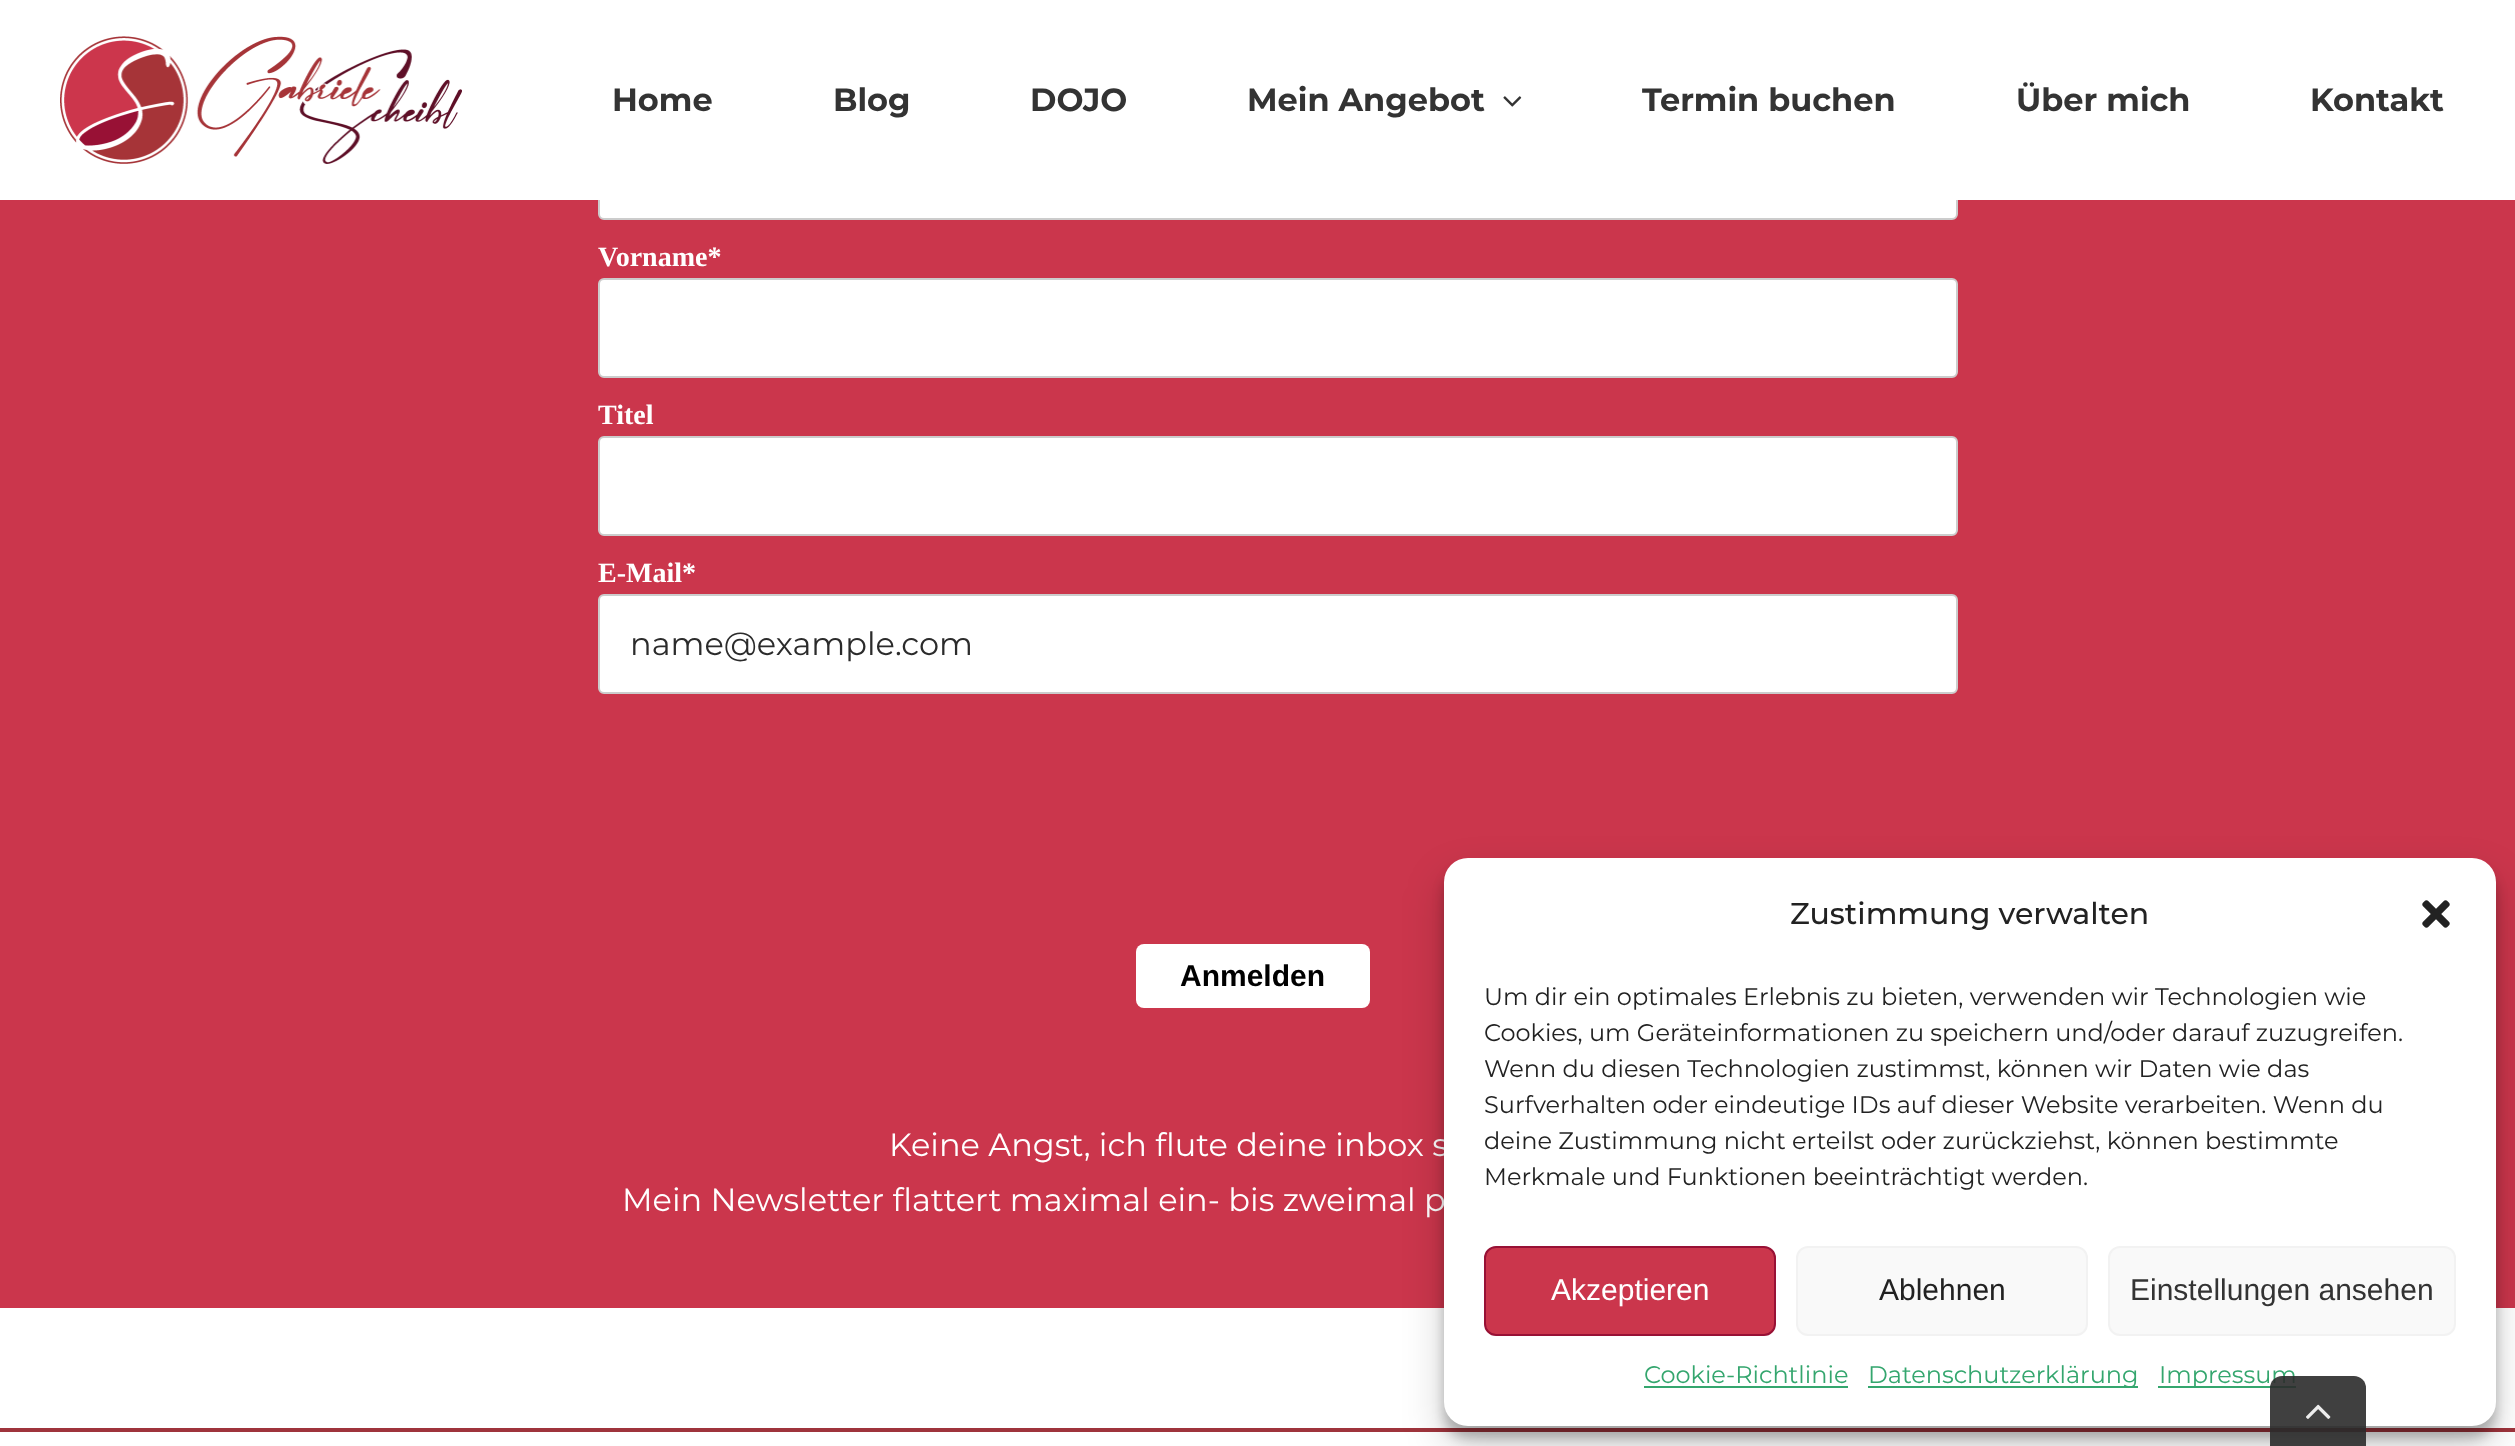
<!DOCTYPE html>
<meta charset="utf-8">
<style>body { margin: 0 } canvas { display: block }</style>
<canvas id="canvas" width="2515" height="1446"></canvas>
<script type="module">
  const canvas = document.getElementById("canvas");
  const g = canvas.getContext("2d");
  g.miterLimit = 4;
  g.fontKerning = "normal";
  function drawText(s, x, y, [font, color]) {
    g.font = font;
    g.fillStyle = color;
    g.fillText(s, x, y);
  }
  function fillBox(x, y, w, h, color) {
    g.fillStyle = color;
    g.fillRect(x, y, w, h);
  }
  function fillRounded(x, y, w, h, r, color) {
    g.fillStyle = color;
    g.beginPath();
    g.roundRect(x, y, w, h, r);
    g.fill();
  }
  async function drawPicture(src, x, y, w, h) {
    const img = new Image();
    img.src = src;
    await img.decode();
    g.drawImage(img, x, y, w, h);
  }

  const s1 = ["bold 32px Montserrat", "#333333"];
  const s2 = ["bold 28px Liberation Serif", "#FFFFFF"];
  const s3 = ["32px Montserrat", "#2B2B2B"];
  const s4 = ["bold 30px Liberation Sans", "#000000"];
  const s5 = ["32px Montserrat", "#FFFFFF"];
  const s6 = ["500 30px Montserrat", "#222222"];
  const s7 = ["24px Montserrat", "#222222"];
  const s8 = ["30px Liberation Sans", "#FFFFFF"];
  const s9 = ["30px Liberation Sans", "#222222"];
  const s10 = ["30px Liberation Sans", "#333333"];
  const s11 = ["24px Montserrat", "#34A66E"];

  fillBox(0, 0, 2515, 1446, "#FFFFFF");
  fillBox(0, 200, 2515, 1108, "#CB364C");
  g.fillStyle = "#FFFFFF";
  g.beginPath();
  g.roundRect(599, 121, 1358, 98, 5);
  g.fill();
  g.strokeStyle = "#CCCCCC";
  g.lineWidth = 2;
  g.stroke();
  fillBox(598, 120, 1360, 80, "#FFFFFF");
  await drawPicture("pic1.png", 60, 36, 402, 128);
  drawText("Home", 612, 111, s1);
  drawText("Blog", 833, 111, s1);
  drawText("DOJO", 1030, 111, s1);
  drawText("Mein Angebot", 1247, 111, s1);
  await drawPicture("pic2.png", 1503, 96, 19, 11);
  drawText("Termin buchen", 1642, 111, s1);
  drawText("Über mich", 2016, 111, s1);
  drawText("Kontakt", 2310, 111, s1);
  drawText("Vorname*", 598, 266, s2);
  g.beginPath();
  g.roundRect(599, 279, 1358, 98, 5);
  g.fill();
  g.stroke();
  drawText("Titel", 598, 424, s2);
  g.beginPath();
  g.roundRect(599, 437, 1358, 98, 5);
  g.fill();
  g.stroke();
  drawText("E-Mail*", 598, 582, s2);
  g.beginPath();
  g.roundRect(599, 595, 1358, 98, 5);
  g.fill();
  g.stroke();
  drawText("name@example.com", 630, 655, s3);
  fillRounded(1136, 944, 234, 64, 8, "#FFFFFF");
  drawText("Anmelden", 1180, 986, s4);
  drawText("Keine Angst, ich flute deine inbox s", 889, 1156, s5);
  drawText("Mein Newsletter flattert maximal ein- bis zweimal p", 622, 1211, s5);
  fillBox(0, 1428, 2515, 4, "#9F343C");
  g.fillStyle = "rgba(0, 0, 0, 0.23)";
  g.filter = "blur(6px)";
  g.beginPath();
  g.roundRect(1444, 870, 1052, 568, 24);
  g.fill();
  g.filter = "none";
  g.fillStyle = "rgba(0, 0, 0, 0.19)";
  g.filter = "blur(20px)";
  g.beginPath();
  g.roundRect(1444, 878, 1052, 568, 24);
  g.fill();
  g.filter = "none";
  fillRounded(1444, 858, 1052, 568, 24, "#FFFFFF");
  drawText("Zustimmung verwalten", 1790, 924, s6);
  await drawPicture("pic3.png", 2422, 900, 28, 28);
  drawText("Um dir ein optimales Erlebnis zu bieten, verwenden wir Technologien wie", 1484, 1005, s7);
  drawText("Cookies, um Geräteinformationen zu speichern und/oder darauf zuzugreifen.", 1484, 1041, s7);
  drawText("Wenn du diesen Technologien zustimmst, können wir Daten wie das", 1484, 1077, s7);
  drawText("Surfverhalten oder eindeutige IDs auf dieser Website verarbeiten. Wenn du", 1484, 1113, s7);
  drawText("deine Zustimmung nicht erteilst oder zurückziehst, können bestimmte", 1484, 1149, s7);
  drawText("Merkmale und Funktionen beeinträchtigt werden.", 1484, 1185, s7);
  g.fillStyle = "#CB364C";
  g.beginPath();
  g.roundRect(1485, 1247, 290, 88, 11);
  g.fill();
  g.strokeStyle = "#981135";
  g.stroke();
  drawText("Akzeptieren", 1551, 1300, s8);
  g.fillStyle = "#F9F9F9";
  g.beginPath();
  g.roundRect(1797, 1247, 290, 88, 11);
  g.fill();
  g.strokeStyle = "#F2F2F2";
  g.stroke();
  drawText("Ablehnen", 1879, 1300, s9);
  g.fillStyle = "#F9F9F9";
  g.beginPath();
  g.roundRect(2109, 1247, 346, 88, 11);
  g.fill();
  g.stroke();
  drawText("Einstellungen ansehen", 2130, 1300, s10);
  drawText("Cookie-Richtlinie", 1644, 1383, s11);
  fillBox(1644, 1386, 204, 2, "#34A66E");
  fillBox(1868, 1386, 270, 2, "#34A66E");
  drawText("Datenschutzerklärung", 1868, 1383, s11);
  fillBox(2158, 1386, 138, 2, "#34A66E");
  drawText("Impressum", 2159, 1383, s11);
  g.fillStyle = "rgba(43, 43, 43, 0.9)";
  g.beginPath();
  g.roundRect(2270, 1376, 96, 70, [12, 12, 0, 0]);
  g.fill();
  await drawPicture("pic4.png", 2306, 1404, 25, 15);
</script>
